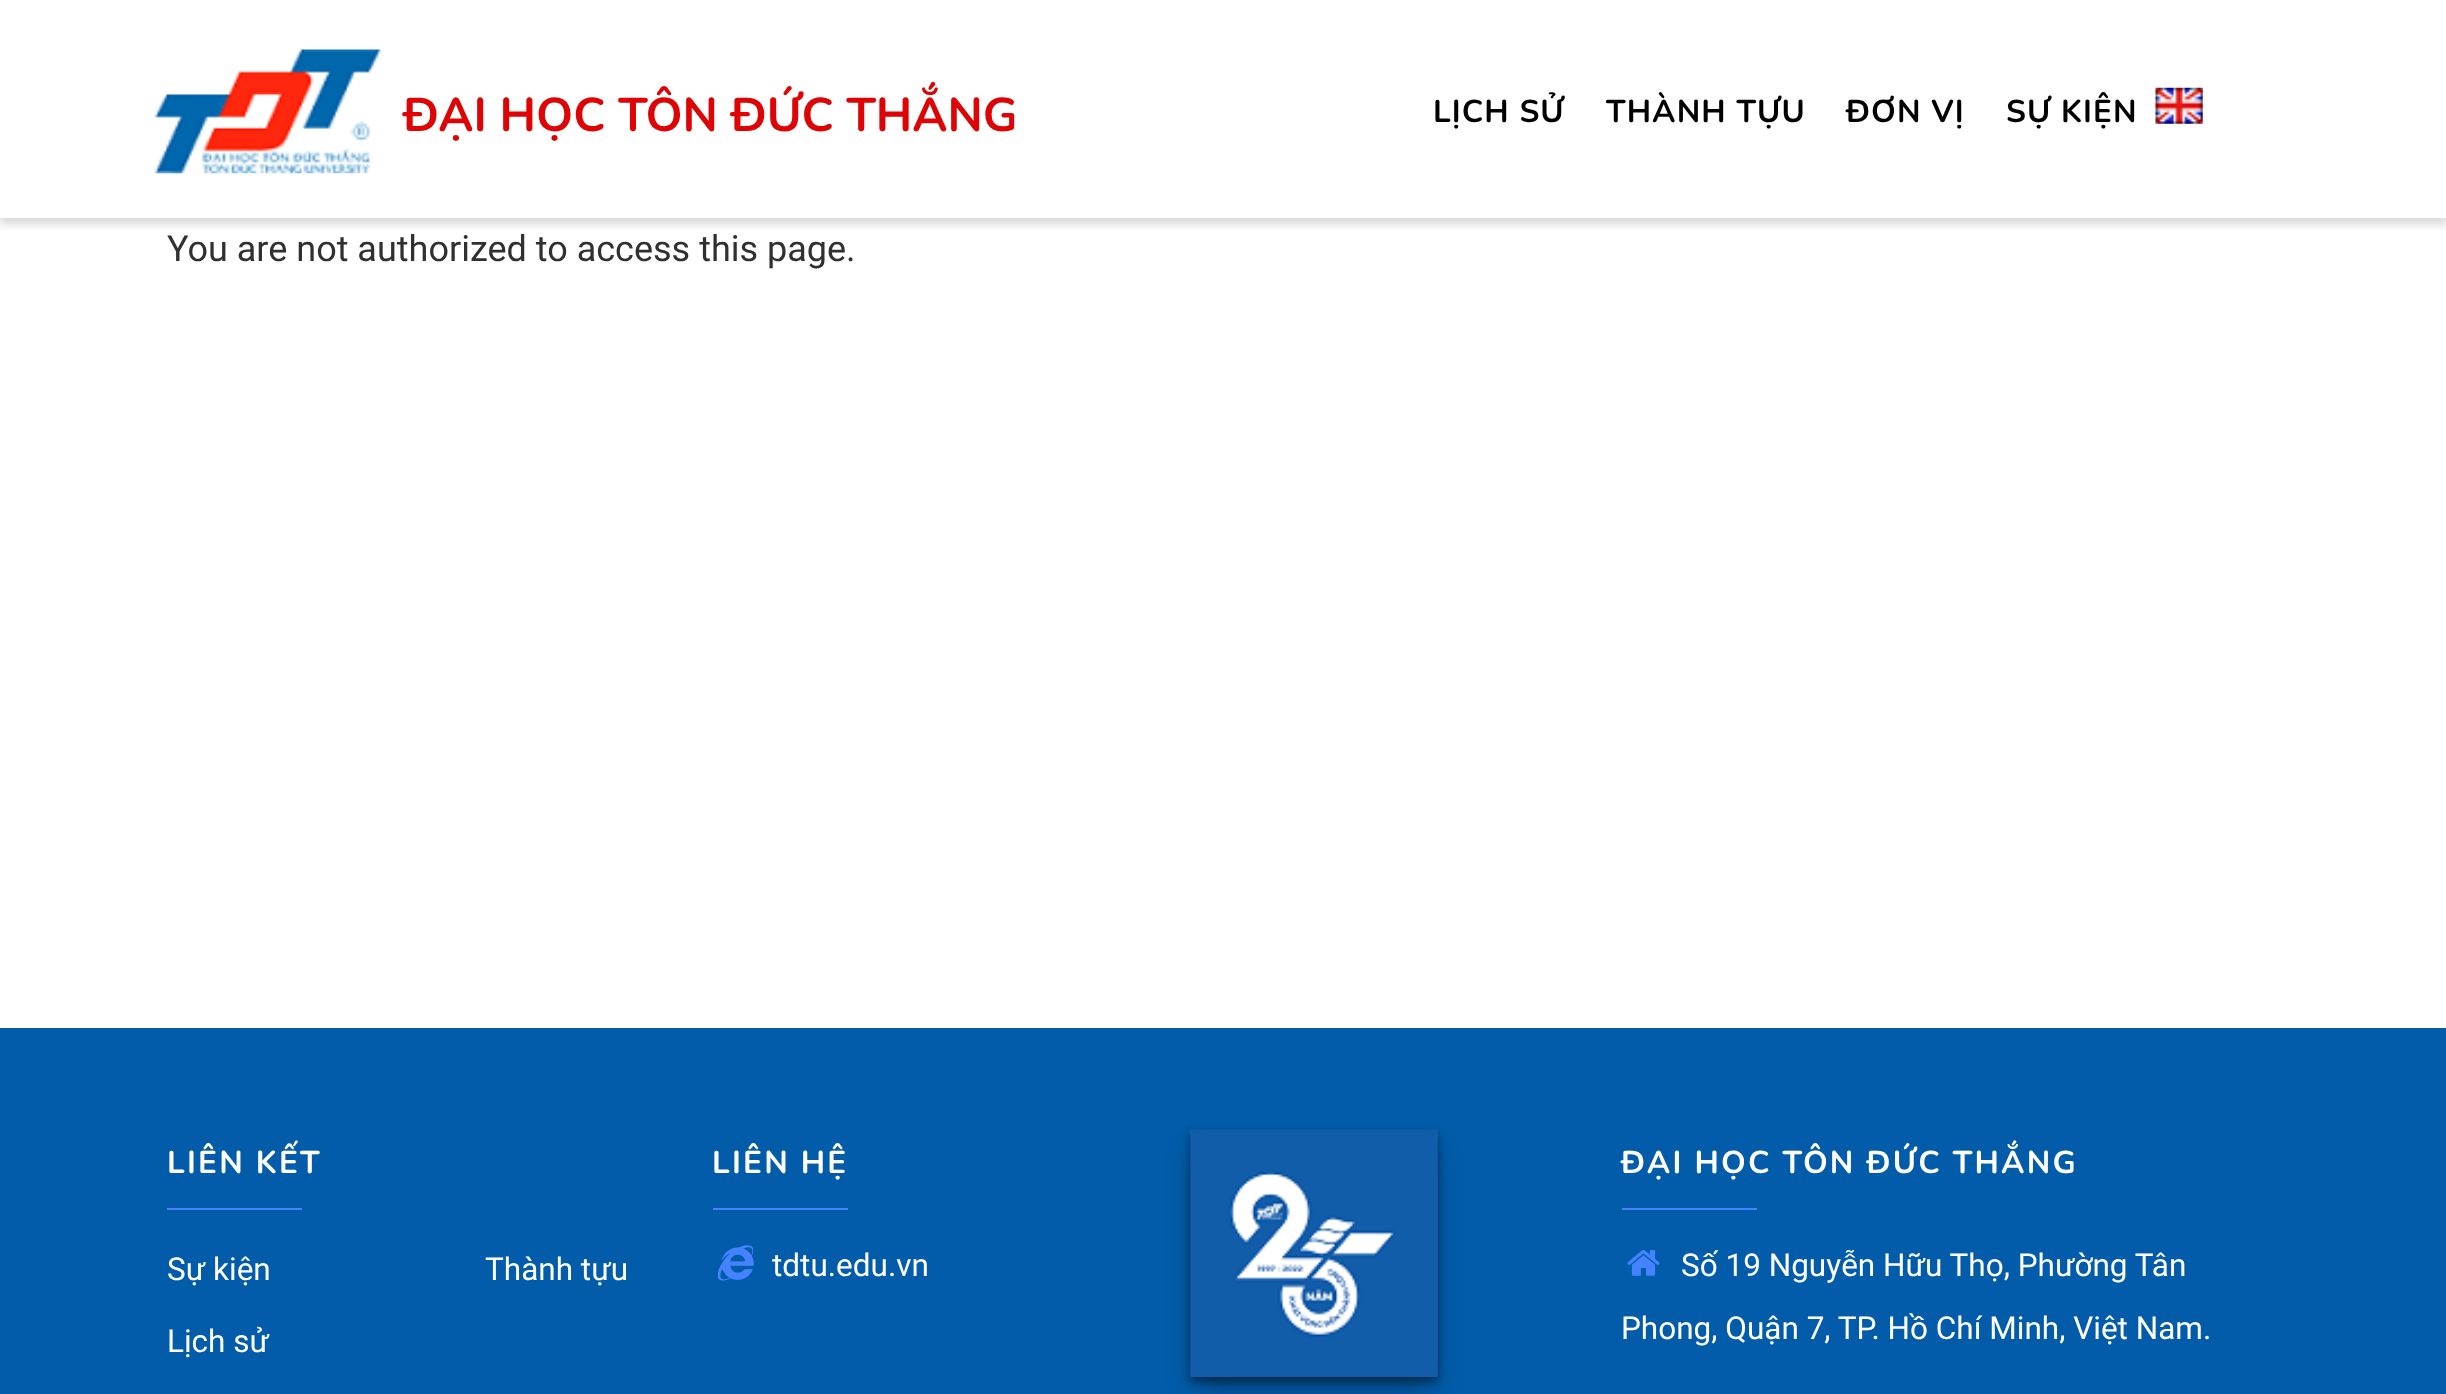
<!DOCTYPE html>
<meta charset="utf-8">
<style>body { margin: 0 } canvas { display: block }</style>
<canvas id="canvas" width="2446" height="1394"></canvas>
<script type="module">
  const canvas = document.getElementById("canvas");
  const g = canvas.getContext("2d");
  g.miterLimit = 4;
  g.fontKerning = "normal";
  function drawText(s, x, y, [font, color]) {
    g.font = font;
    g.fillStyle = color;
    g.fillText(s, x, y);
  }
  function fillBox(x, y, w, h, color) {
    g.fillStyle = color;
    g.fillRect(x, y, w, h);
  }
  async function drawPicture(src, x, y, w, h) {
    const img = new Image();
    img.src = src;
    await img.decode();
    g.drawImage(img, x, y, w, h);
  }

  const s1 = ["200 47.25px Nunito", "#DE0405"];
  const s2 = ["200 31.5px Nunito", "#000000"];
  const s3 = ["36px Roboto", "#303030"];
  const s4 = ["200 31.5px Nunito", "#FFFFFF"];
  const s5 = ["31.5px Roboto", "#FFFFFF"];

  fillBox(0, 0, 2446, 1394, "#FFFFFF");
  g.save();
  g.beginPath();
  g.rect(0, 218, 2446, 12);
  g.clip();
  g.fillStyle = "rgba(0, 0, 0, 0.14)";
  g.filter = "blur(4.5px)";
  g.beginPath();
  g.rect(0, 9, 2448, 216);
  g.fill();
  g.filter = "none";
  g.restore();
  await drawPicture("pic1.png", 155, 49, 226, 125);
  drawText("ĐẠI HỌC TÔN ĐỨC THẮNG", 403, 131, s1);
  g.letterSpacing = "1.1px";
  drawText("LỊCH SỬ", 1433, 122, s2);
  drawText("THÀNH TỰU", 1606, 122, s2);
  drawText("ĐƠN VỊ", 1846, 122, s2);
  drawText("SỰ KIỆN", 2006, 122, s2);
  await drawPicture("pic2.png", 2155, 87, 48, 37);
  g.letterSpacing = "0px";
  drawText("You are not authorized to access this page.", 167, 261, s3);
  fillBox(0, 1028, 2446, 366, "#035CA9");
  g.letterSpacing = "2.25px";
  drawText("LIÊN KẾT", 167, 1173, s4);
  fillBox(167, 1208, 135, 2, "#4582FF");
  g.letterSpacing = "0px";
  drawText("Sự kiện", 167, 1280, s5);
  drawText("Lịch sử", 167, 1352, s5);
  drawText("Thành tựu", 485, 1280, s5);
  g.letterSpacing = "2.25px";
  drawText("LIÊN HỆ", 712, 1173, s4);
  fillBox(713, 1208, 135, 2, "#4582FF");
  await drawPicture("pic3.png", 717, 1245, 37, 36);
  g.letterSpacing = "0px";
  drawText("tdtu.edu.vn", 772, 1276, s5);
  g.fillStyle = "rgba(0, 0, 0, 0.3)";
  g.filter = "blur(14.5px)";
  g.beginPath();
  g.rect(1197, 1152, 234, 234);
  g.fill();
  g.filter = "none";
  g.fillStyle = "rgba(0, 0, 0, 0.4)";
  g.filter = "blur(4.5px)";
  g.beginPath();
  g.rect(1190, 1134, 248, 248);
  g.fill();
  g.filter = "none";
  await drawPicture("pic4.png", 1190, 1129, 248, 248);
  g.letterSpacing = "2.25px";
  drawText("ĐẠI HỌC TÔN ĐỨC THẮNG", 1621, 1173, s4);
  fillBox(1622, 1208, 135, 2, "#4582FF");
  await drawPicture("pic5.png", 1627, 1250, 33, 26);
  g.letterSpacing = "0px";
  drawText("Số 19 Nguyễn Hữu Thọ, Phường Tân", 1681, 1276, s5);
  drawText("Phong, Quận 7, TP. Hồ Chí Minh, Việt Nam.", 1621, 1339, s5);
</script>
